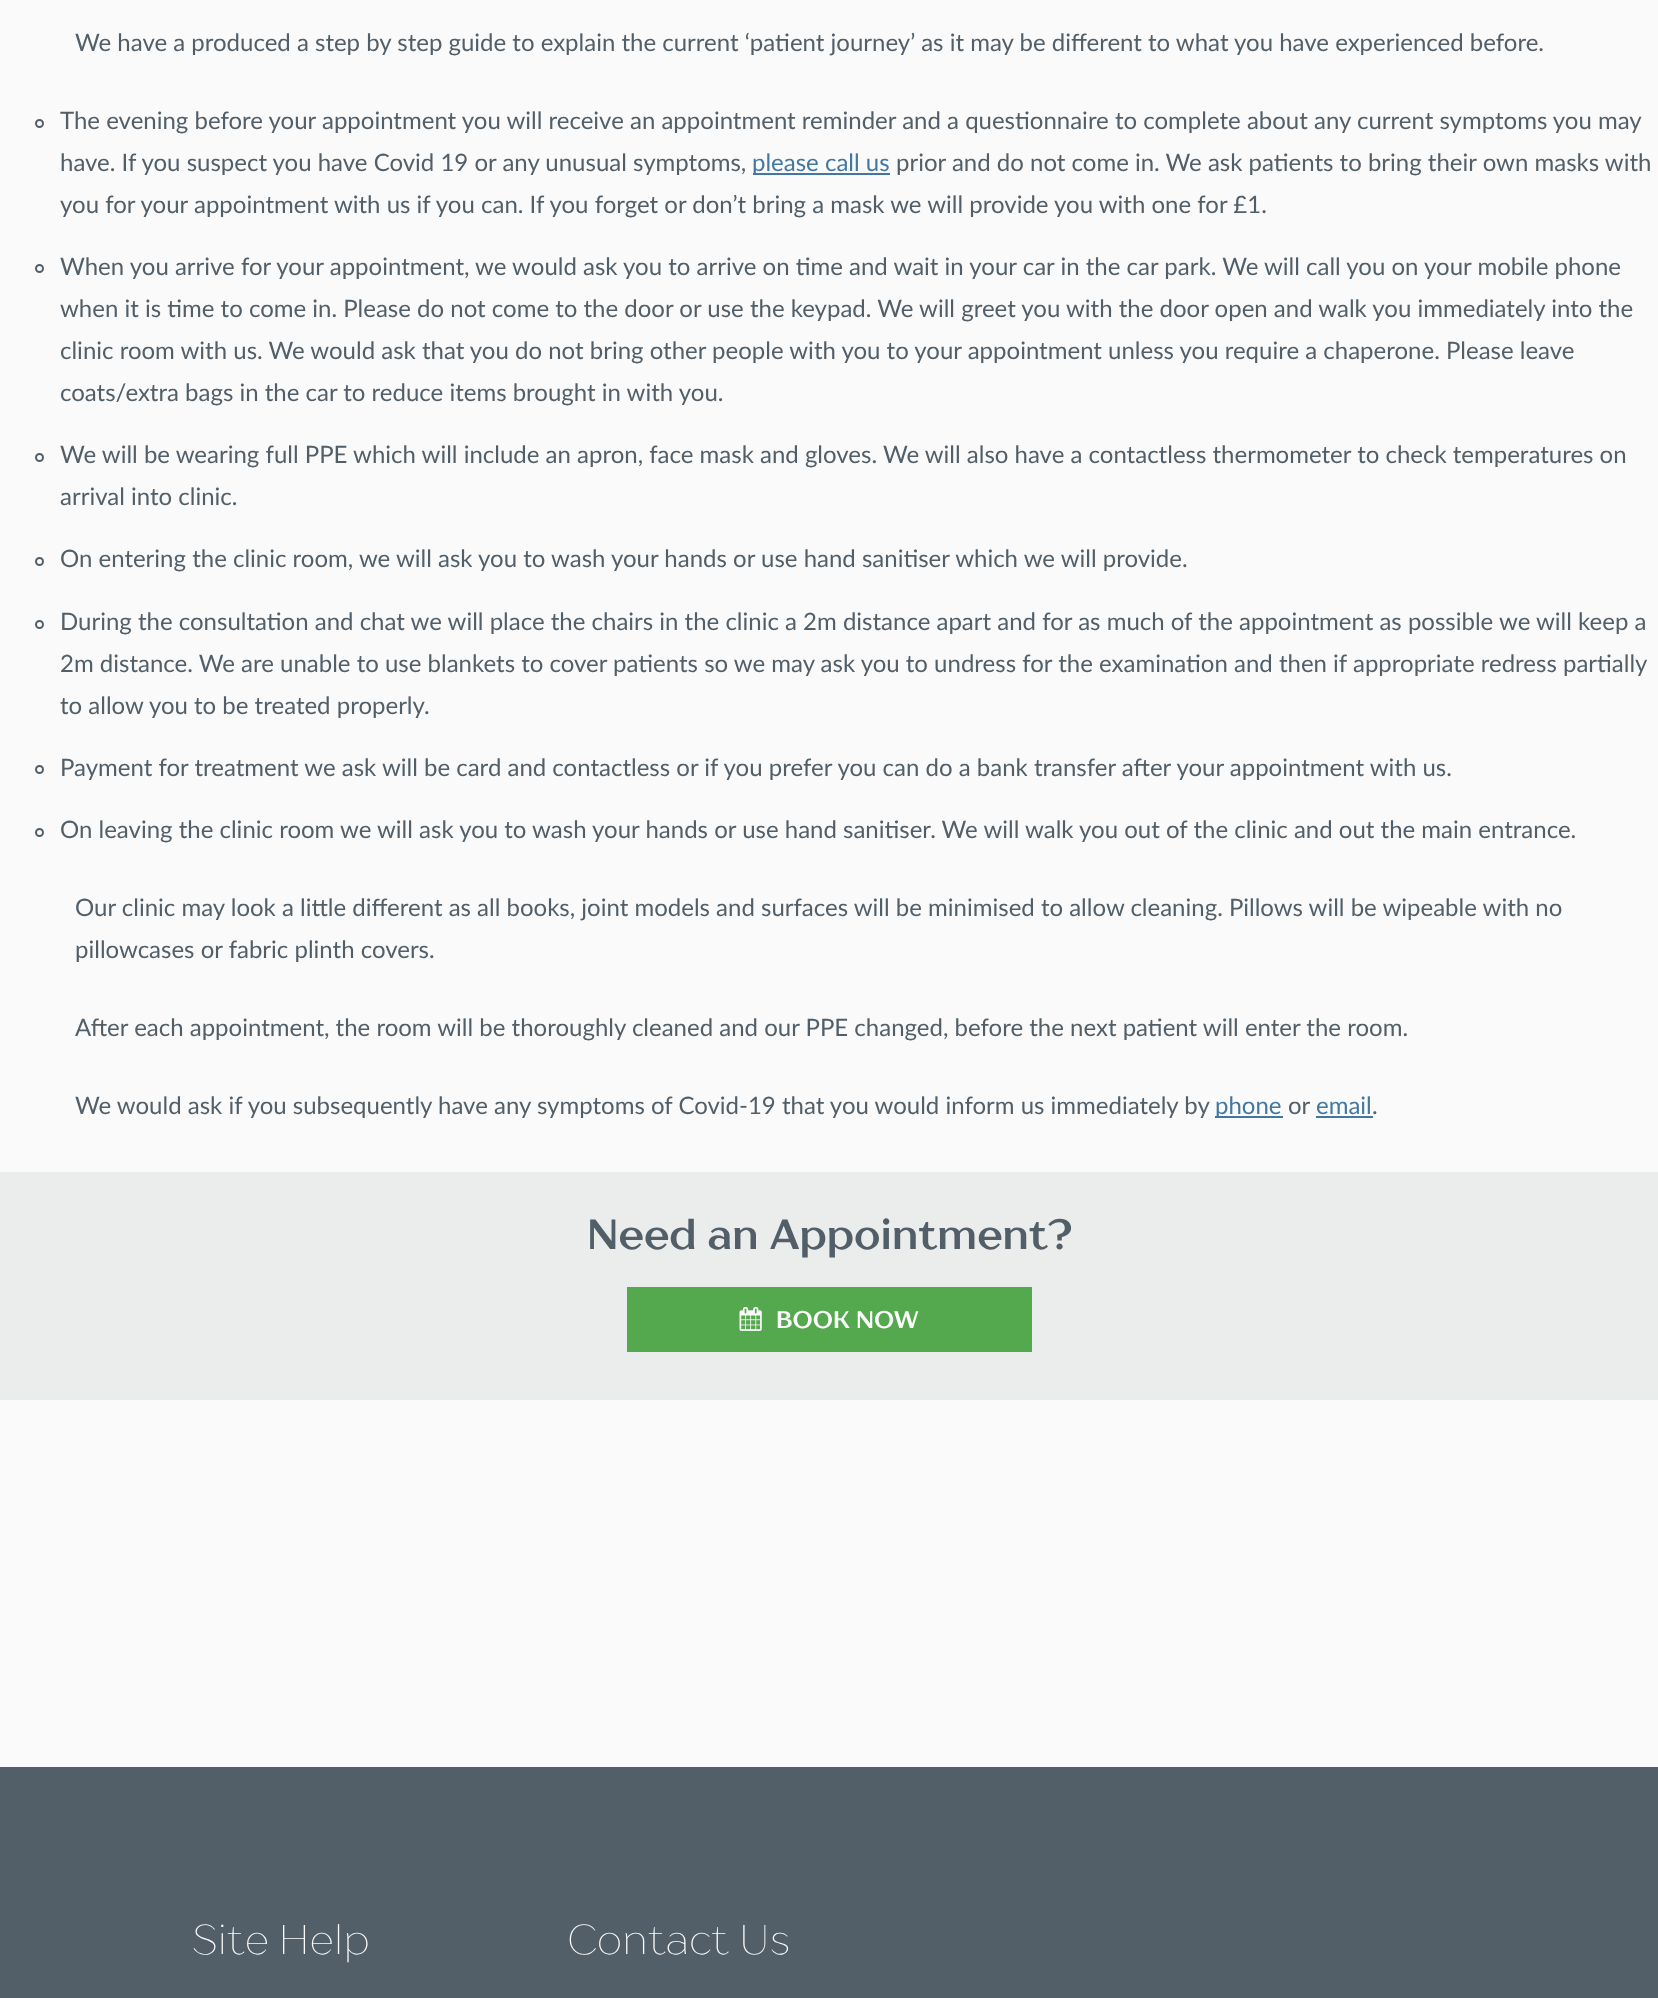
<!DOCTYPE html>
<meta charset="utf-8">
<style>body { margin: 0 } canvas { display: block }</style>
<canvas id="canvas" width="1658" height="1998"></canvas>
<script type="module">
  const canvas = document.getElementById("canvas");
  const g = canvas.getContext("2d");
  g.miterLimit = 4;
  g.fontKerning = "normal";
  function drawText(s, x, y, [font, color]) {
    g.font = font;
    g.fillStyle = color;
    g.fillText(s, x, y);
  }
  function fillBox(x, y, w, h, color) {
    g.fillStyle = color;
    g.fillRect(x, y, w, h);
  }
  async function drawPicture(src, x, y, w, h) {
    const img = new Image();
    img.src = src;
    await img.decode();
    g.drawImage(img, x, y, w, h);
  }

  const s1 = ["24px Lato", "#525F69"];
  const s2 = ["24px Lato", "#42789F"];
  const s3 = ["bold 42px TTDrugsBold", "#525F69"];
  const s4 = ["bold 24px TTDrugsBold", "#FAFAFA"];
  const s5 = ["100 41.5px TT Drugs", "#FAFAFA"];

  fillBox(0, 0, 1658, 1998, "#FAFAFA");
  drawText("We have a produced a step by step guide to explain the current ‘patient journey’ as it may be different to what you have experienced before.", 75, 51, s1);
  g.beginPath();
  g.arc(39.5, 123.5, 3.5, 0, Math.PI * 2);
  g.strokeStyle = "#525F69";
  g.lineWidth = 2;
  g.stroke();
  drawText("The evening before your appointment you will receive an appointment reminder and a questionnaire to complete about any current symptoms you may", 60, 129, s1);
  drawText("have. If you suspect you have Covid 19 or any unusual symptoms,", 60, 171, s1);
  fillBox(753, 173, 137, 2, "#42789F");
  drawText("please call us", 752, 171, s2);
  drawText("prior and do not come in. We ask patients to bring their own masks with", 896, 171, s1);
  drawText("you for your appointment with us if you can. If you forget or don’t bring a mask we will provide you with one for £1.", 60, 213, s1);
  g.beginPath();
  g.arc(39.5, 268.5, 3.5, 0, Math.PI * 2);
  g.stroke();
  drawText("When you arrive for your appointment, we would ask you to arrive on time and wait in your car in the car park. We will call you on your mobile phone", 60, 275, s1);
  drawText("when it is time to come in. Please do not come to the door or use the keypad. We will greet you with the door open and walk you immediately into the", 60, 317, s1);
  drawText("clinic room with us. We would ask that you do not bring other people with you to your appointment unless you require a chaperone. Please leave", 60, 359, s1);
  drawText("coats/extra bags in the car to reduce items brought in with you.", 60, 401, s1);
  g.beginPath();
  g.arc(39.5, 457.5, 3.5, 0, Math.PI * 2);
  g.stroke();
  drawText("We will be wearing full PPE which will include an apron, face mask and gloves. We will also have a contactless thermometer to check temperatures on", 60, 463, s1);
  drawText("arrival into clinic.", 60, 505, s1);
  g.beginPath();
  g.arc(39.5, 561.5, 3.5, 0, Math.PI * 2);
  g.stroke();
  drawText("On entering the clinic room, we will ask you to wash your hands or use hand sanitiser which we will provide.", 60, 567, s1);
  g.beginPath();
  g.arc(39.5, 624.5, 3.5, 0, Math.PI * 2);
  g.stroke();
  drawText("During the consultation and chat we will place the chairs in the clinic a 2m distance apart and for as much of the appointment as possible we will keep a", 60, 630, s1);
  drawText("2m distance. We are unable to use blankets to cover patients so we may ask you to undress for the examination and then if appropriate redress partially", 60, 672, s1);
  drawText("to allow you to be treated properly.", 60, 714, s1);
  g.beginPath();
  g.arc(39.5, 769.5, 3.5, 0, Math.PI * 2);
  g.stroke();
  drawText("Payment for treatment we ask will be card and contactless or if you prefer you can do a bank transfer after your appointment with us.", 60, 776, s1);
  g.beginPath();
  g.arc(39.5, 832.5, 3.5, 0, Math.PI * 2);
  g.stroke();
  drawText("On leaving the clinic room we will ask you to wash your hands or use hand sanitiser. We will walk you out of the clinic and out the main entrance.", 60, 838, s1);
  drawText("Our clinic may look a little different as all books, joint models and surfaces will be minimised to allow cleaning. Pillows will be wipeable with no", 75, 916, s1);
  drawText("pillowcases or fabric plinth covers.", 75, 958, s1);
  drawText("After each appointment, the room will be thoroughly cleaned and our PPE changed, before the next patient will enter the room.", 75, 1036, s1);
  drawText("We would ask if you subsequently have any symptoms of Covid-19 that you would inform us immediately by", 75, 1114, s1);
  fillBox(1215, 1116, 68, 2, "#42789F");
  drawText("phone", 1215, 1114, s2);
  drawText("or", 1288, 1114, s1);
  drawText("email", 1316, 1114, s2);
  fillBox(1316, 1116, 57, 2, "#42789F");
  drawText(".", 1372, 1114, s1);
  fillBox(0, 1172, 1658, 228, "#EBECEC");
  drawText("Need an Appointment?", 587, 1249, s3);
  fillBox(627, 1287, 405, 65, "#54A84D");
  await drawPicture("pic1.png", 739, 1306, 23, 25);
  drawText("BOOK NOW", 776, 1328, s4);
  fillBox(0, 1767, 1658, 231, "#525F69");
  drawText("Site Help", 192, 1954, s5);
  drawText("Contact Us", 567, 1954, s5);
</script>
